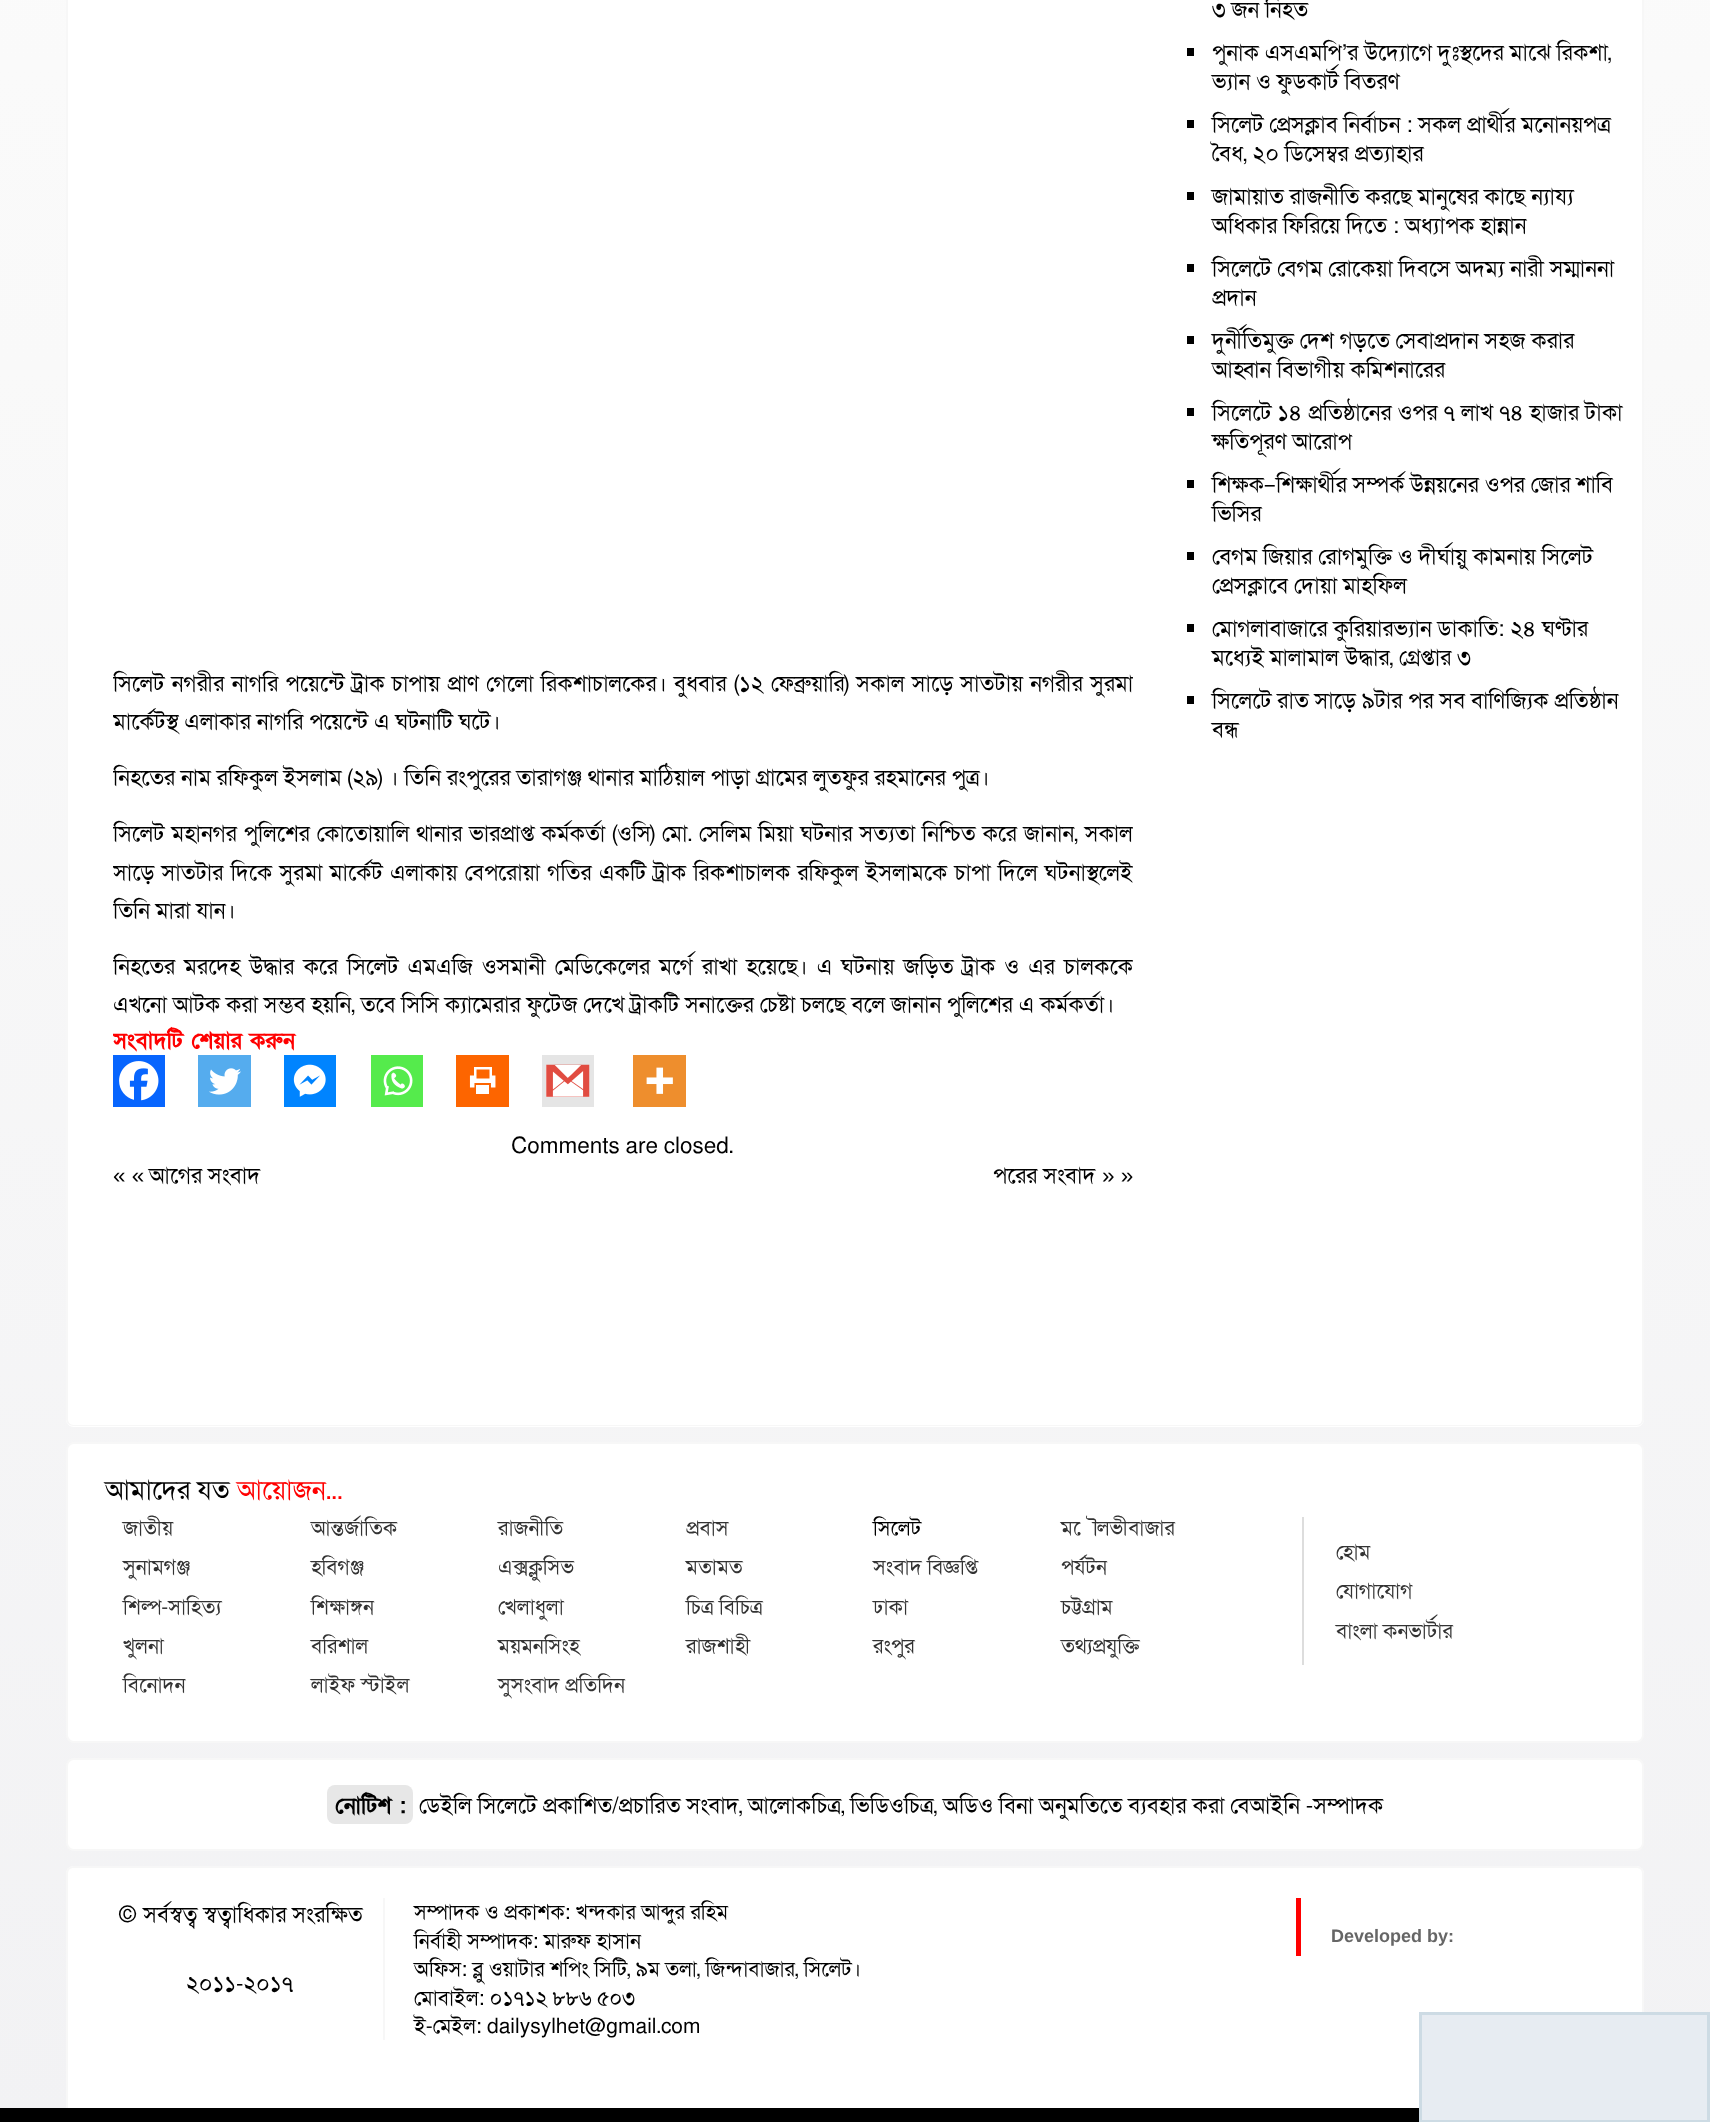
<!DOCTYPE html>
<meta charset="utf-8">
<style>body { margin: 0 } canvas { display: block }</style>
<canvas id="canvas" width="1710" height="2122"></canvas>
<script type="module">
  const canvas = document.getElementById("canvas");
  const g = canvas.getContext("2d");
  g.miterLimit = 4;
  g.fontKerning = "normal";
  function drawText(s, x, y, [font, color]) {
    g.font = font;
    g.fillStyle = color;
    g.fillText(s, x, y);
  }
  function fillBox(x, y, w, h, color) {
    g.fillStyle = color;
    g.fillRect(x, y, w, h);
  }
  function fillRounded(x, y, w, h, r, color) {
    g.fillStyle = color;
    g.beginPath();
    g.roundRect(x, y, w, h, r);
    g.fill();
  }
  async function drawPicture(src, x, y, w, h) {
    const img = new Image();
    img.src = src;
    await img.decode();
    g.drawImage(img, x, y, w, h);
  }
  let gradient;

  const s1 = ["22.5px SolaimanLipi", "#000000"];
  const s2 = ["bold 22.5px SolaimanLipi", "#FF0000"];
  const s3 = ["22.5px Liberation Sans", "#000000"];
  const s4 = ["27px SolaimanLipi", "#000000"];
  const s5 = ["27px SolaimanLipi", "#FF0000"];
  const s6 = ["21px SolaimanLipi", "#333333"];
  const s7 = ["21px SolaimanLipi", "#000000"];
  const s8 = ["bold 22.5px SolaimanLipi", "#000000"];
  const s9 = ["bold 18px Liberation Sans", "#666666"];

  fillBox(0, 0, 1710, 2122, "#FFFFFF");
  gradient = g.createLinearGradient(855, -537, 855, 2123);
  gradient.addColorStop(0, "#FCFCFC");
  gradient.addColorStop(0.34, "#F9F9F9");
  gradient.addColorStop(1, "#F2F2F4");
  g.fillStyle = gradient;
  g.fillRect(0, 0, 1710, 2108);
  g.fillStyle = "#FFFFFF";
  g.beginPath();
  g.moveTo(66, -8);
  g.lineTo(1644, -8);
  g.lineTo(1644, 1419);
  g.bezierCurveTo(1644, 1423.5, 1640.5, 1427, 1636, 1427);
  g.lineTo(74, 1427);
  g.bezierCurveTo(69.5, 1427, 66, 1423.5, 66, 1419);
  g.closePath();
  g.fill();
  g.fillStyle = "#F7F7F7";
  g.beginPath();
  g.moveTo(66, -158);
  g.lineTo(1644, -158);
  g.lineTo(1644, 1419);
  g.bezierCurveTo(1644, 1423, 1641, 1426, 1636, 1426);
  g.lineTo(74, 1426);
  g.bezierCurveTo(69, 1426, 66, 1423, 66, 1419);
  g.closePath();
  g.moveTo(68, -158);
  g.lineTo(1642, -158);
  g.lineTo(1642, 1419);
  g.bezierCurveTo(1642, 1422, 1640, 1425, 1636, 1425);
  g.lineTo(74, 1425);
  g.bezierCurveTo(70, 1425, 68, 1422, 68, 1419);
  g.closePath();
  g.fill("evenodd");
  drawText("৩ জন নিহত", 1212, 17, s1);
  fillBox(1187, 48, 7, 8, "#000000");
  drawText("পুনাক এসএমপি’র উদ্যোগে দুঃস্থদের মাঝে রিকশা,", 1212, 60, s1);
  drawText("ভ্যান ও ফুডকার্ট বিতরণ", 1212, 89, s1);
  fillBox(1187, 120, 7, 8, "#000000");
  drawText("সিলেট প্রেসক্লাব নির্বাচন : সকল প্রার্থীর মনোনয়পত্র", 1212, 132, s1);
  drawText("বৈধ, ২০ ডিসেম্বর প্রত্যাহার", 1212, 161, s1);
  fillBox(1187, 192, 7, 8, "#000000");
  drawText("জামায়াত রাজনীতি করছে মানুষের কাছে ন্যায্য", 1212, 204, s1);
  drawText("অধিকার ফিরিয়ে দিতে : অধ্যাপক হান্নান", 1212, 233, s1);
  fillBox(1187, 264, 7, 8, "#000000");
  drawText("সিলেটে বেগম রোকেয়া দিবসে অদম্য নারী সম্মাননা", 1212, 276, s1);
  drawText("প্রদান", 1212, 305, s1);
  fillBox(1187, 336, 7, 8, "#000000");
  drawText("দুর্নীতিমুক্ত দেশ গড়তে সেবাপ্রদান সহজ করার", 1212, 348, s1);
  drawText("আহ্বান বিভাগীয় কমিশনারের", 1212, 377, s1);
  fillBox(1187, 408, 7, 8, "#000000");
  drawText("সিলেটে ১৪ প্রতিষ্ঠানের ওপর ৭ লাখ ৭৪ হাজার টাকা", 1212, 420, s1);
  drawText("ক্ষতিপূরণ আরোপ", 1212, 449, s1);
  fillBox(1187, 480, 7, 8, "#000000");
  drawText("শিক্ষক–শিক্ষার্থীর সম্পর্ক উন্নয়নের ওপর জোর শাবি", 1212, 492, s1);
  drawText("ভিসির", 1212, 521, s1);
  fillBox(1187, 552, 7, 8, "#000000");
  drawText("বেগম জিয়ার রোগমুক্তি ও দীর্ঘায়ু কামনায় সিলেট", 1212, 564, s1);
  drawText("প্রেসক্লাবে দোয়া মাহফিল", 1212, 593, s1);
  fillBox(1187, 624, 7, 8, "#000000");
  drawText("মোগলাবাজারে কুরিয়ারভ্যান ডাকাতি: ২৪ ঘণ্টার", 1212, 636, s1);
  drawText("মধ্যেই মালামাল উদ্ধার, গ্রেপ্তার ৩", 1212, 665, s1);
  fillBox(1187, 696, 7, 8, "#000000");
  drawText("সিলেটে রাত সাড়ে ৯টার পর সব বাণিজ্যিক প্রতিষ্ঠান", 1212, 708, s1);
  drawText("বন্ধ", 1212, 737, s1);
  g.save();
  g.beginPath();
  g.rect(113, 0, 1020, 1425);
  g.clip();
  g.wordSpacing = "1.5px";
  drawText("সিলেট নগরীর নাগরি পয়েন্টে ট্রাক চাপায় প্রাণ গেলো রিকশাচালকের। বুধবার (১২ ফেব্রুয়ারি) সকাল সাড়ে সাতটায় নগরীর সুরমা", 113, 691, s1);
  g.wordSpacing = "0px";
  drawText("মার্কেটস্থ এলাকার নাগরি পয়েন্টে এ ঘটনাটি ঘটে।", 113, 729, s1);
  drawText("নিহতের নাম রফিকুল ইসলাম (২৯) । তিনি রংপুরের তারাগঞ্জ থানার মাঠিয়াল পাড়া গ্রামের লুতফুর রহমানের পুত্র।", 113, 785, s1);
  g.wordSpacing = "1.1px";
  drawText("সিলেট মহানগর পুলিশের কোতোয়ালি থানার ভারপ্রাপ্ত কর্মকর্তা (ওসি) মো. সেলিম মিয়া ঘটনার সত্যতা নিশ্চিত করে জানান, সকাল", 113, 841, s1);
  g.wordSpacing = "1.5px";
  drawText("সাড়ে সাতটার দিকে সুরমা মার্কেট এলাকায় বেপরোয়া গতির একটি ট্রাক রিকশাচালক রফিকুল ইসলামকে চাপা দিলে ঘটনাস্থলেই", 113, 880, s1);
  g.wordSpacing = "0px";
  drawText("তিনি মারা যান।", 113, 918, s1);
  g.wordSpacing = "3.25px";
  drawText("নিহতের মরদেহ উদ্ধার করে সিলেট এমএজি ওসমানী মেডিকেলের মর্গে রাখা হয়েছে। এ ঘটনায় জড়িত ট্রাক ও এর চালককে", 113, 974, s1);
  g.restore();
  drawText("এখনো আটক করা সম্ভব হয়নি, তবে সিসি ক্যামেরার ফুটেজ দেখে ট্রাকটি সনাক্তের চেষ্টা চলছে বলে জানান পুলিশের এ কর্মকর্তা।", 113, 1012, s1);
  g.save();
  g.beginPath();
  g.rect(113, 0, 1020, 1425);
  g.clip();
  drawText("সংবাদটি শেয়ার করুন", 113, 1048, s2);
  g.restore();
  fillBox(113, 1055, 52, 52, "#0765FE");
  await drawPicture("pic1.png", 119, 1061, 40, 40);
  fillBox(198, 1055, 53, 52, "#55ACEE");
  await drawPicture("pic2.png", 209, 1068, 32, 27);
  fillBox(284, 1055, 52, 52, "#0084FF");
  await drawPicture("pic3.png", 293, 1064, 33, 33);
  fillBox(371, 1055, 52, 52, "#55EB4C");
  await drawPicture("pic4.png", 383, 1066, 30, 30);
  fillBox(456, 1055, 53, 52, "#FD6500");
  await drawPicture("pic5.png", 469, 1067, 27, 27);
  fillBox(542, 1055, 52, 52, "#E5E5E5");
  await drawPicture("pic6.png", 546, 1064, 44, 33);
  fillBox(633, 1055, 53, 52, "#EE8E2D");
  await drawPicture("pic7.png", 646, 1067, 27, 27);
  drawText("Comments are closed.", 511, 1153, s1);
  drawText("« «", 113, 1183, s3);
  drawText("আগের সংবাদ", 149, 1183, s1);
  drawText("পরের সংবাদ", 993, 1183, s1);
  drawText("» »", 1102, 1183, s3);
  g.fillStyle = "#FFFFFF";
  g.beginPath();
  g.roundRect(67, 1443, 1576, 299, 7);
  g.fill();
  g.strokeStyle = "#F7F7F7";
  g.lineWidth = 2;
  g.stroke();
  drawText("আমাদের যত", 105, 1499, s4);
  drawText("আয়োজন...", 237, 1499, s5);
  drawText("জাতীয়", 123, 1535, s6);
  drawText("আন্তর্জাতিক", 311, 1535, s6);
  drawText("রাজনীতি", 498, 1535, s6);
  drawText("প্রবাস", 686, 1535, s6);
  drawText("সিলেট", 873, 1535, s7);
  drawText("মৌলভীবাজার", 1061, 1535, s6);
  drawText("সুনামগঞ্জ", 123, 1574, s6);
  drawText("হবিগঞ্জ", 311, 1574, s6);
  drawText("এক্সক্লুসিভ", 498, 1574, s6);
  drawText("মতামত", 686, 1574, s6);
  drawText("সংবাদ বিজ্ঞপ্তি", 873, 1574, s6);
  drawText("পর্যটন", 1061, 1574, s6);
  drawText("শিল্প-সাহিত্য", 123, 1614, s6);
  drawText("শিক্ষাঙ্গন", 311, 1614, s6);
  drawText("খেলাধুলা", 498, 1614, s6);
  drawText("চিত্র বিচিত্র", 686, 1614, s6);
  drawText("ঢাকা", 873, 1614, s6);
  drawText("চট্টগ্রাম", 1061, 1614, s6);
  drawText("খুলনা", 123, 1653, s6);
  drawText("বরিশাল", 311, 1653, s6);
  drawText("ময়মনসিংহ", 498, 1653, s6);
  drawText("রাজশাহী", 686, 1653, s6);
  drawText("রংপুর", 873, 1653, s6);
  drawText("তথ্যপ্রযুক্তি", 1061, 1653, s6);
  drawText("বিনোদন", 123, 1692, s6);
  drawText("লাইফ স্টাইল", 311, 1692, s6);
  drawText("সুসংবাদ প্রতিদিন", 498, 1692, s6);
  fillBox(1302, 1517, 2, 148, "#DDDDDD");
  drawText("হোম", 1336, 1559, s6);
  drawText("যোগাযোগ", 1336, 1598, s6);
  drawText("বাংলা কনভার্টার", 1336, 1638, s6);
  g.fillStyle = "#FFFFFF";
  g.beginPath();
  g.roundRect(67, 1759, 1576, 91, 7);
  g.fill();
  g.stroke();
  fillRounded(327, 1785, 86, 39, 8, "#E7E7E7");
  drawText("নোটিশ :", 335, 1813, s8);
  drawText("ডেইলি সিলেটে প্রকাশিত/প্রচারিত সংবাদ, আলোকচিত্র, ভিডিওচিত্র, অডিও বিনা অনুমতিতে ব্যবহার করা বেআইনি -সম্পাদক", 419, 1813, s1);
  fillBox(0, 2108, 1419, 14, "#000000");
  g.fillStyle = "#FFFFFF";
  g.beginPath();
  g.roundRect(66, 1866, 1578, 242, [8, 8, 0, 0]);
  g.fill();
  g.fillStyle = "#F7F7F7";
  g.beginPath();
  g.moveTo(74, 1866);
  g.lineTo(1636, 1866);
  g.bezierCurveTo(1641, 1866, 1644, 1869, 1644, 1874);
  g.lineTo(1644, 2108);
  g.lineTo(66, 2108);
  g.lineTo(66, 1874);
  g.bezierCurveTo(66, 1869, 69, 1866, 74, 1866);
  g.closePath();
  g.moveTo(74, 1868);
  g.lineTo(1636, 1868);
  g.bezierCurveTo(1640, 1868, 1642, 1870, 1642, 1874);
  g.lineTo(1642, 2108);
  g.lineTo(68, 2108);
  g.lineTo(68, 1874);
  g.bezierCurveTo(68, 1870, 70, 1868, 74, 1868);
  g.closePath();
  g.fill("evenodd");
  drawText("© সর্বস্বত্ব স্বত্বাধিকার সংরক্ষিত", 118, 1922, s1);
  drawText("২০১১-২০১৭", 186, 1991, s1);
  fillBox(383, 1898, 2, 142, "#F7F7F7");
  drawText("সম্পাদক ও প্রকাশক: খন্দকার আব্দুর রহিম", 414, 1919, s7);
  drawText("নির্বাহী সম্পাদক: মারুফ হাসান", 414, 1948, s7);
  drawText("অফিস: ব্লু ওয়াটার শপিং সিটি, ৯ম তলা, জিন্দাবাজার, সিলেট।", 414, 1976, s7);
  drawText("মোবাইল: ০১৭১২ ৮৮৬ ৫০৩", 414, 2005, s7);
  drawText("ই-মেইল: dailysylhet@gmail.com", 414, 2033, s7);
  fillBox(1296, 1898, 5, 58, "#FF0000");
  drawText("Developed by:", 1331, 1942, s9);
  g.fillStyle = "#E7ECF2";
  g.beginPath();
  g.rect(1420.5, 2013.5, 288, 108);
  g.fill();
  g.strokeStyle = "#CDDBE4";
  g.lineWidth = 3;
  g.stroke();
</script>
